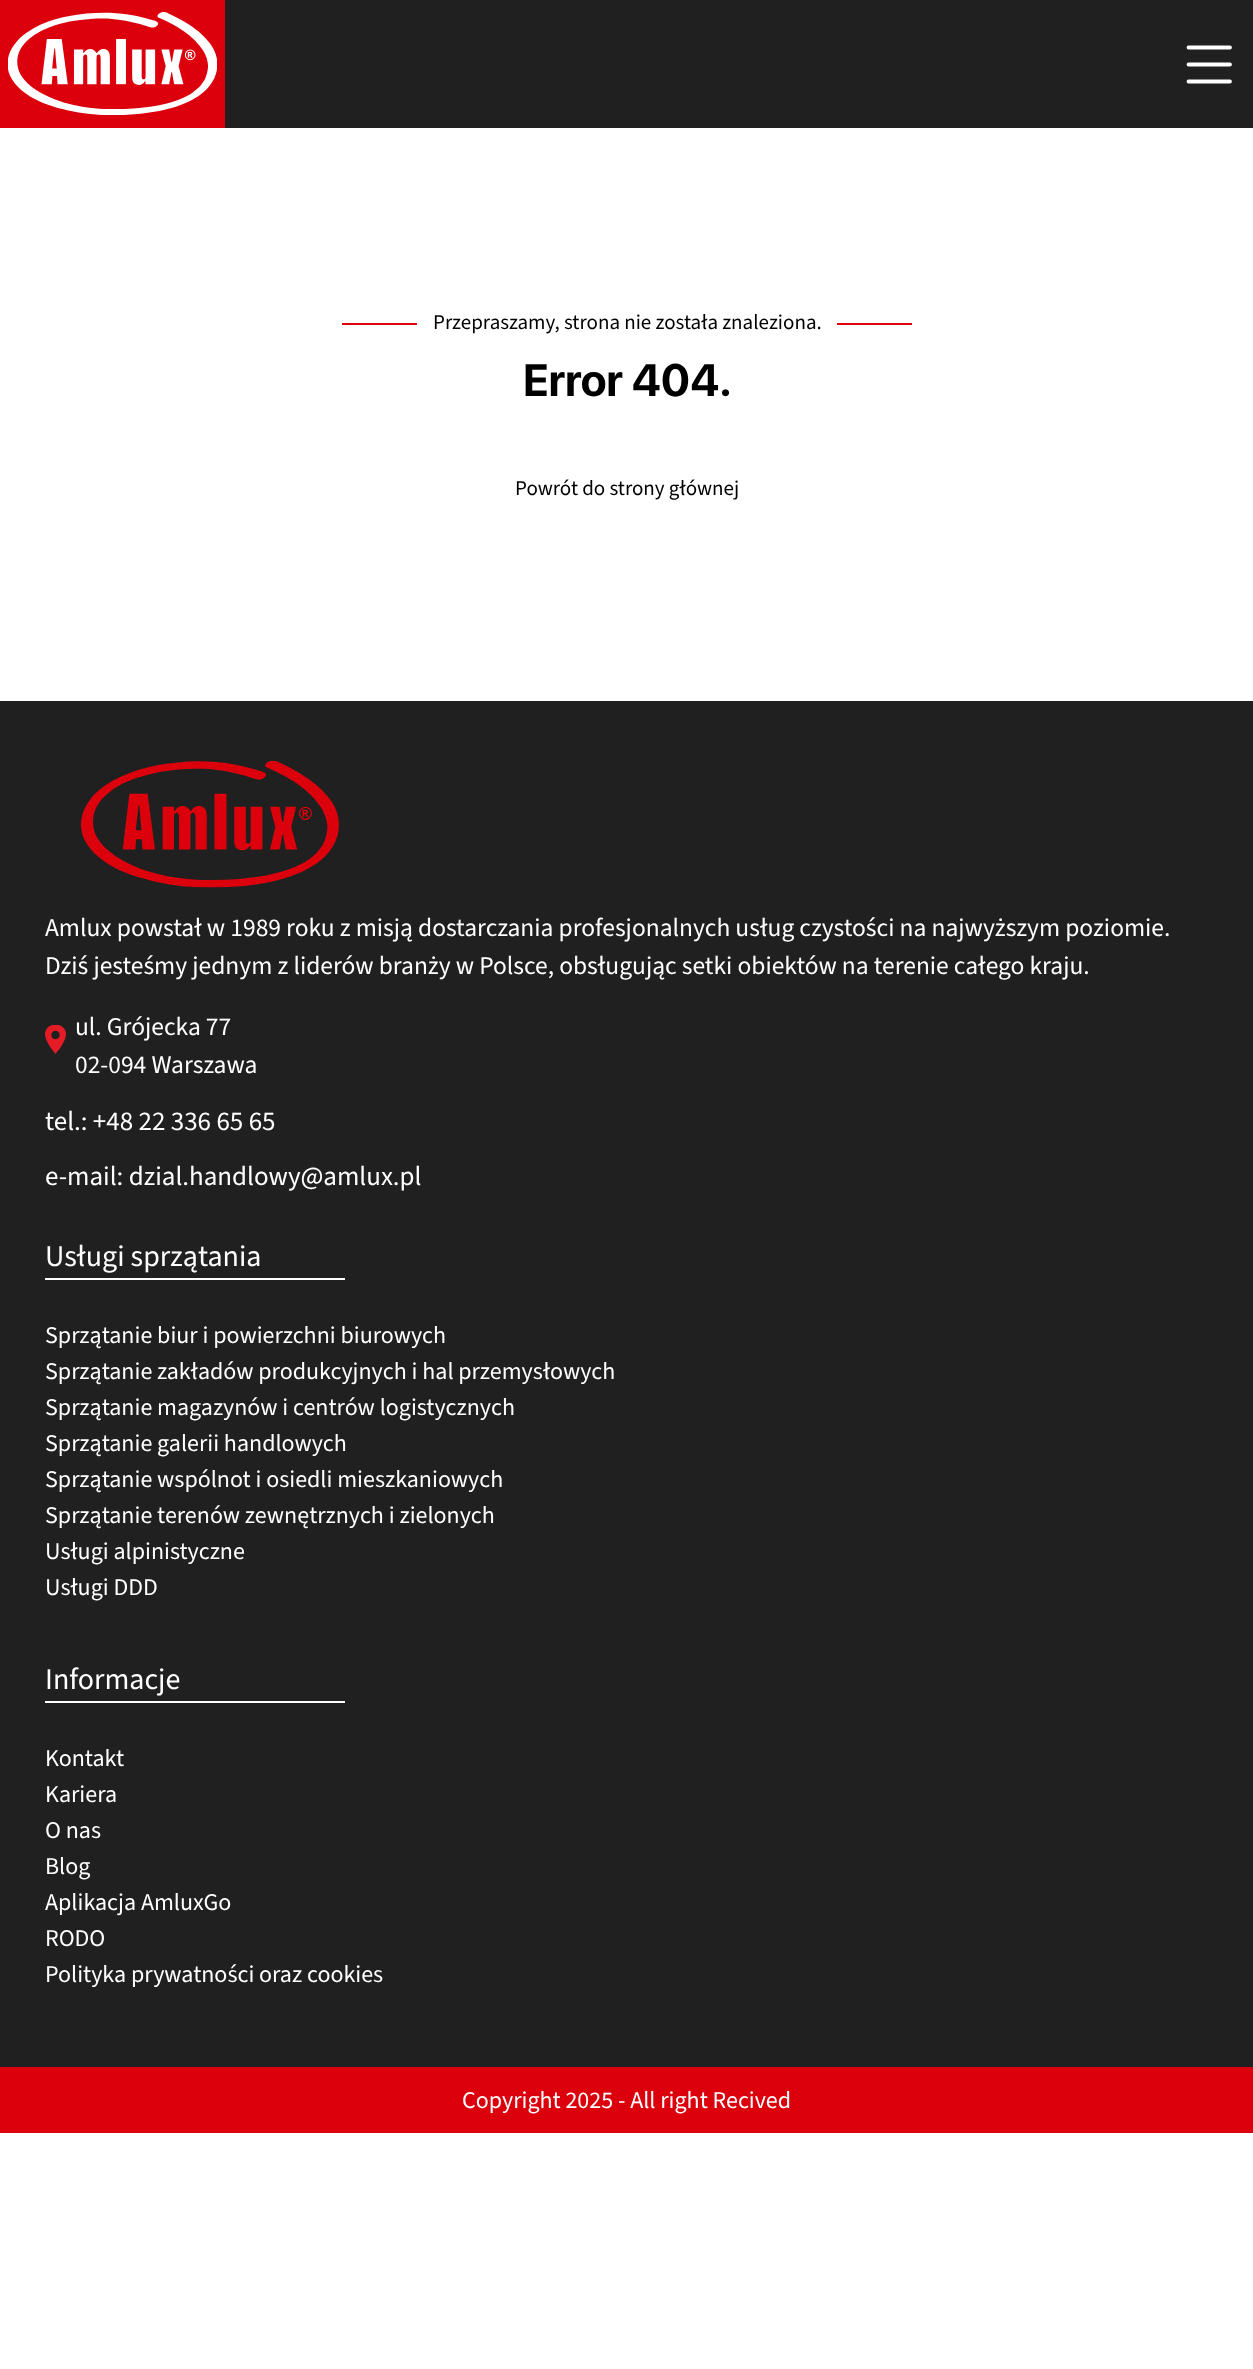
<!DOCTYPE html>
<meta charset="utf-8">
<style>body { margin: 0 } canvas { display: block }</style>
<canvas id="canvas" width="1253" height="2369"></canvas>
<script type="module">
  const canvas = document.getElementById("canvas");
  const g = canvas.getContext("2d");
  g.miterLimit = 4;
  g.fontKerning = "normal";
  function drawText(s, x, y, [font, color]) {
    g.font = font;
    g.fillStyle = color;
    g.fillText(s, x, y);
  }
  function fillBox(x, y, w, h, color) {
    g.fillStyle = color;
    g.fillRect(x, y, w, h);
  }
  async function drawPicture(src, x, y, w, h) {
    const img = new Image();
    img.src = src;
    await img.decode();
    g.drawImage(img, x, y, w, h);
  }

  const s1 = ["21px 'Source Sans 3'", "#000000"];
  const s2 = ["bold 45px SF Pro Display", "#000000"];
  const s3 = ["25.5px 'Source Sans 3'", "#FFFFFF"];
  const s4 = ["27px 'Source Sans 3'", "#FFFFFF"];
  const s5 = ["30px 'Source Sans 3'", "#FFFFFF"];
  const s6 = ["24px 'Source Sans 3'", "#FFFFFF"];

  fillBox(0, 0, 1253, 2369, "#FFFFFF");
  fillBox(0, 0, 225, 128, "#DB000C");
  await drawPicture("pic1.png", 8, 12, 209, 103);
  fillBox(225, 0, 1028, 128, "#202020");
  g.beginPath();
  g.moveTo(1188.5, 47.5);
  g.lineTo(1230, 47.5);
  g.moveTo(1188.5, 64.5);
  g.lineTo(1230, 64.5);
  g.moveTo(1188.5, 81.5);
  g.lineTo(1230, 81.5);
  g.strokeStyle = "#FFFFFF";
  g.lineWidth = 3.8;
  g.lineCap = "round";
  g.stroke();
  fillBox(342, 323, 75, 2, "#DB000C");
  drawText("Przepraszamy, strona nie została znaleziona.", 433, 329, s1);
  fillBox(837, 323, 75, 2, "#DB000C");
  drawText("Error 404.", 523, 396, s2);
  drawText("Powrót do strony głównej", 515, 495, s1);
  fillBox(0, 701, 1253, 1366, "#202020");
  await drawPicture("pic2.png", 81, 761, 258, 127);
  drawText("Amlux powstał w 1989 roku z misją dostarczania profesjonalnych usług czystości na najwyższym poziomie.", 45, 936, s3);
  drawText("Dziś jesteśmy jednym z liderów branży w Polsce, obsługując setki obiektów na terenie całego kraju.", 45, 974, s3);
  await drawPicture("pic3.png", 45, 1025, 21, 29);
  drawText("ul. Grójecka 77", 75, 1035, s3);
  drawText("02-094 Warszawa", 75, 1073, s3);
  drawText("tel.: +48 22 336 65 65", 45, 1130, s4);
  drawText("e-mail: dzial.handlowy@amlux.pl", 45, 1185, s4);
  drawText("Usługi sprzątania", 45, 1266, s5);
  fillBox(45, 1278, 300, 2, "#FFFFFF");
  drawText("Sprzątanie biur i powierzchni biurowych", 45, 1343, s6);
  drawText("Sprzątanie zakładów produkcyjnych i hal przemysłowych", 45, 1379, s6);
  drawText("Sprzątanie magazynów i centrów logistycznych", 45, 1415, s6);
  drawText("Sprzątanie galerii handlowych", 45, 1451, s6);
  drawText("Sprzątanie wspólnot i osiedli mieszkaniowych", 45, 1487, s6);
  drawText("Sprzątanie terenów zewnętrznych i zielonych", 45, 1523, s6);
  drawText("Usługi alpinistyczne", 45, 1559, s6);
  drawText("Usługi DDD", 45, 1595, s6);
  drawText("Informacje", 45, 1689, s5);
  fillBox(45, 1701, 300, 2, "#FFFFFF");
  drawText("Kontakt", 45, 1766, s6);
  drawText("Kariera", 45, 1802, s6);
  drawText("O nas", 45, 1838, s6);
  drawText("Blog", 45, 1874, s6);
  drawText("Aplikacja AmluxGo", 45, 1910, s6);
  drawText("RODO", 45, 1946, s6);
  drawText("Polityka prywatności oraz cookies", 45, 1982, s6);
  fillBox(0, 2067, 1253, 66, "#DB000C");
  drawText("Copyright 2025 - All right Recived", 462, 2108, s6);
</script>
